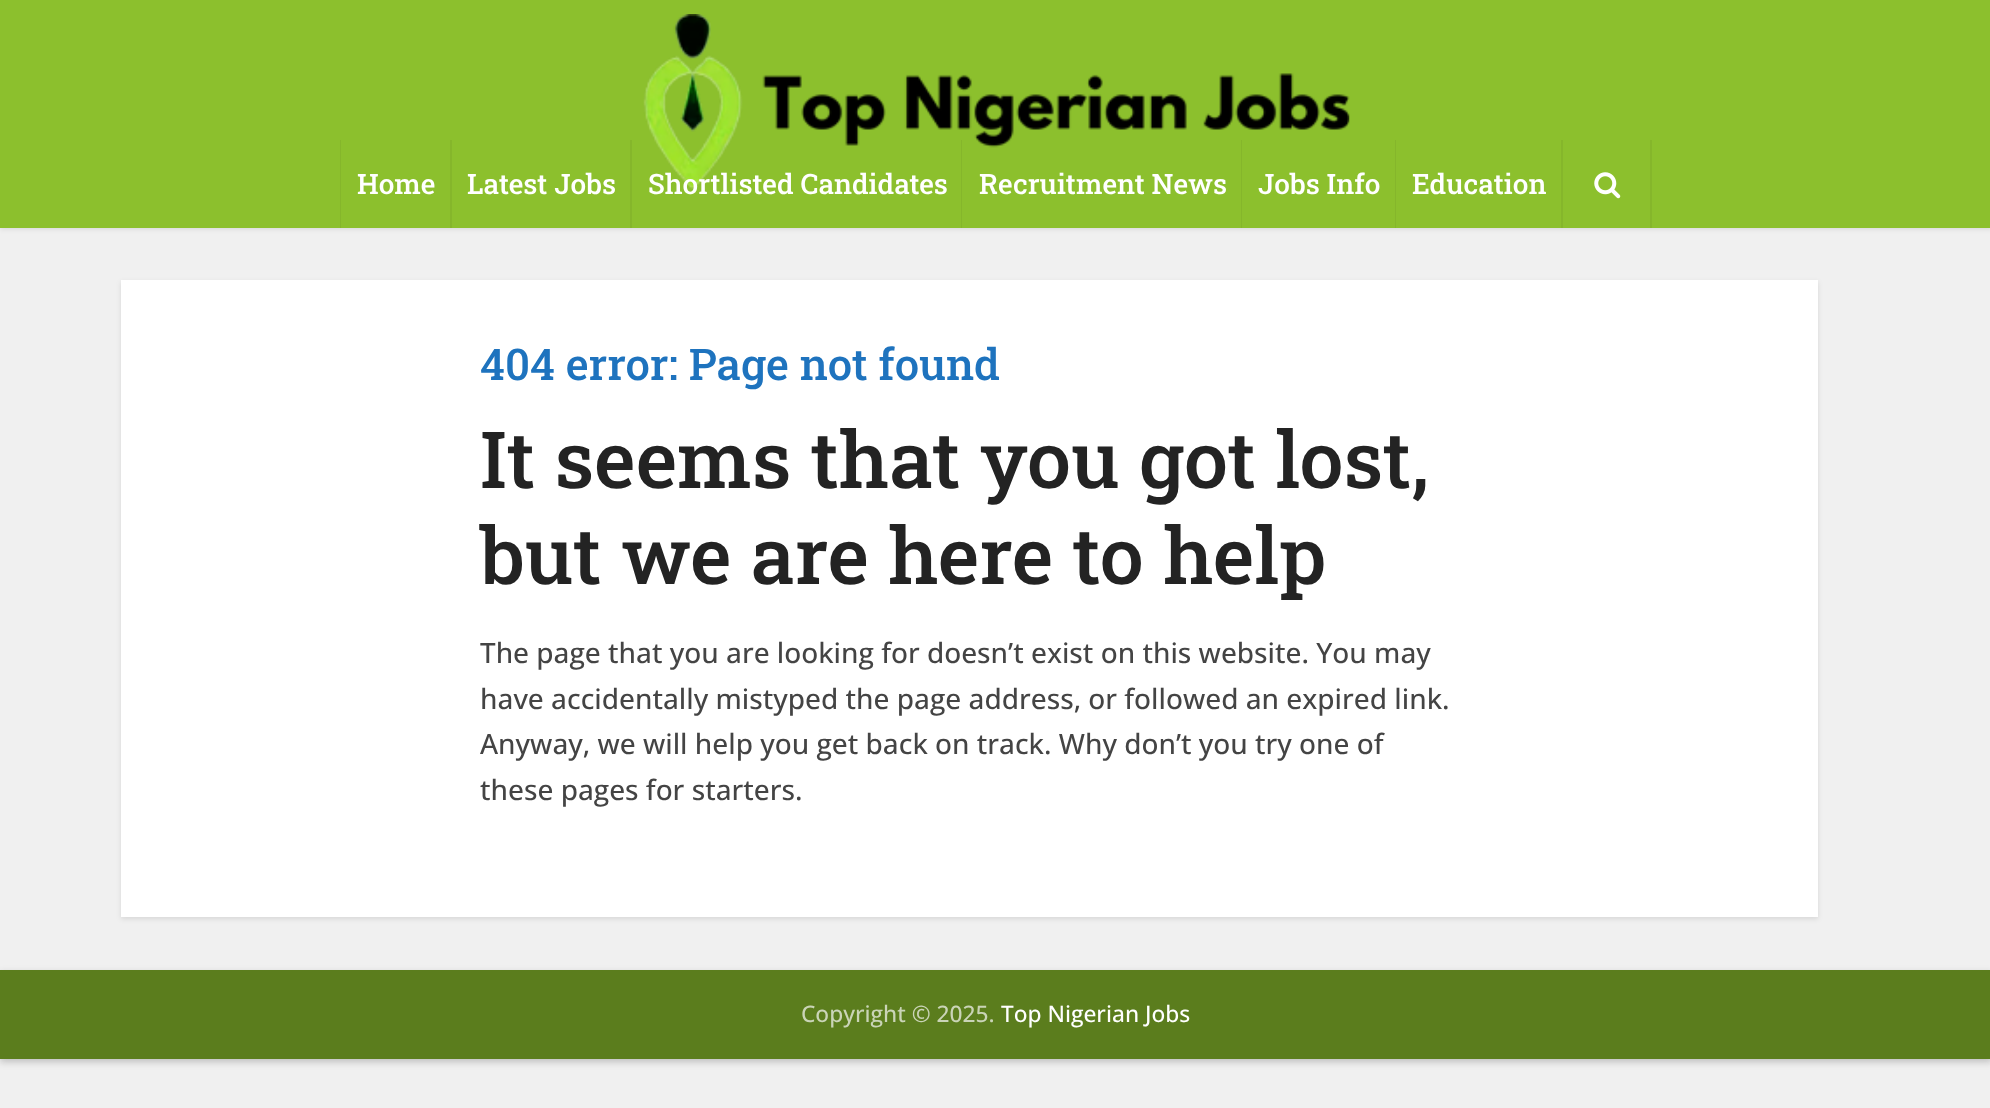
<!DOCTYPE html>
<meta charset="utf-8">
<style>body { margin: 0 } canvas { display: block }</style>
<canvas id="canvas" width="1990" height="1108"></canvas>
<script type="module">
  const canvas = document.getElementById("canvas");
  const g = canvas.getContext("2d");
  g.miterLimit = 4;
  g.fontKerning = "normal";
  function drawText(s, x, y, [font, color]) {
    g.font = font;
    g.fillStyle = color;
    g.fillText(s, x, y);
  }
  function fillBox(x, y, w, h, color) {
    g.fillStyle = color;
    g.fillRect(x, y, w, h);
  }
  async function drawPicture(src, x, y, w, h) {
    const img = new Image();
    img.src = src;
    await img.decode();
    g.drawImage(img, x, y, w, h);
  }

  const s1 = ["500 28px Roboto Slab", "#FFFFFF"];
  const s2 = ["500 43.75px Roboto Slab", "#1E73BE"];
  const s3 = ["500 78.75px Roboto Slab", "#232323"];
  const s4 = ["500 28px Open Sans", "#444444"];
  const s5 = ["500 22.75px Open Sans", "#CAD4B7"];
  const s6 = ["500 22.75px Open Sans", "#FFFFFF"];

  fillBox(0, 0, 1990, 1108, "#F0F0F0");
  g.fillStyle = "rgba(0, 0, 0, 0.1)";
  g.filter = "blur(2.5px)";
  g.beginPath();
  g.rect(0, 2, 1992, 227);
  g.fill();
  g.filter = "none";
  fillBox(0, 0, 1990, 228, "#8CC02D");
  await drawPicture("pic1.png", 643, 14, 707, 175);
  g.fillStyle = "#85B62B";
  g.beginPath();
  g.moveTo(340, 140);
  g.lineTo(340, 228);
  g.lineTo(450, 228);
  g.lineTo(341, 228);
  g.lineTo(341, 140);
  g.closePath();
  g.fill();
  drawText("Home", 357, 194, s1);
  g.fillStyle = "#85B62B";
  g.beginPath();
  g.moveTo(450, 140);
  g.lineTo(450, 228);
  g.lineTo(630, 228);
  g.lineTo(452, 228);
  g.lineTo(452, 140);
  g.closePath();
  g.fill();
  drawText("Latest Jobs", 467, 194, s1);
  g.fillStyle = "#85B62B";
  g.beginPath();
  g.moveTo(630, 140);
  g.lineTo(630, 228);
  g.lineTo(961, 228);
  g.lineTo(632, 228);
  g.lineTo(632, 140);
  g.closePath();
  g.fill();
  drawText("Shortlisted Candidates", 648, 194, s1);
  g.fillStyle = "#85B62B";
  g.beginPath();
  g.moveTo(961, 140);
  g.lineTo(961, 228);
  g.lineTo(1241, 228);
  g.lineTo(962, 228);
  g.lineTo(962, 140);
  g.closePath();
  g.fill();
  drawText("Recruitment News", 979, 194, s1);
  g.fillStyle = "#85B62B";
  g.beginPath();
  g.moveTo(1241, 140);
  g.lineTo(1241, 228);
  g.lineTo(1395, 228);
  g.lineTo(1242, 228);
  g.lineTo(1242, 140);
  g.closePath();
  g.fill();
  drawText("Jobs Info", 1258, 194, s1);
  g.fillStyle = "#85B62B";
  g.beginPath();
  g.moveTo(1395, 140);
  g.lineTo(1395, 228);
  g.lineTo(1561, 228);
  g.lineTo(1396, 228);
  g.lineTo(1396, 140);
  g.closePath();
  g.fill();
  drawText("Education", 1412, 194, s1);
  g.fillStyle = "#85B62B";
  g.beginPath();
  g.moveTo(1565, 228);
  g.lineTo(1652, 228);
  g.lineTo(1652, 140);
  g.lineTo(1650, 140);
  g.lineTo(1650, 228);
  g.closePath();
  g.fill();
  g.beginPath();
  g.moveTo(1561, 140);
  g.lineTo(1561, 228);
  g.lineTo(1649, 228);
  g.lineTo(1563, 228);
  g.lineTo(1563, 140);
  g.closePath();
  g.fill();
  await drawPicture("pic2.png", 1594, 172, 27, 27);
  g.fillStyle = "rgba(0, 0, 0, 0.1)";
  g.filter = "blur(2.5px)";
  g.beginPath();
  g.rect(121, 282, 1697, 637);
  g.fill();
  g.filter = "none";
  fillBox(121, 280, 1697, 637, "#FFFFFF");
  drawText("404 error: Page not found", 480, 380, s2);
  drawText("It seems that you got lost,", 480, 488, s3);
  drawText("but we are here to help", 480, 584, s3);
  drawText("The page that you are looking for doesn’t exist on this website. You may", 480, 663, s4);
  drawText("have accidentally mistyped the page address, or followed an expired link.", 480, 709, s4);
  drawText("Anyway, we will help you get back on track. Why don’t you try one of", 480, 754, s4);
  drawText("these pages for starters.", 480, 800, s4);
  g.fillStyle = "rgba(0, 0, 0, 0.2)";
  g.filter = "blur(3.5px)";
  g.beginPath();
  g.rect(0, 973, 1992, 89);
  g.fill();
  g.filter = "none";
  fillBox(0, 970, 1990, 89, "#5B7D1D");
  drawText("Copyright © 2025.", 801, 1022, s5);
  drawText("Top Nigerian Jobs", 1001, 1022, s6);
</script>
